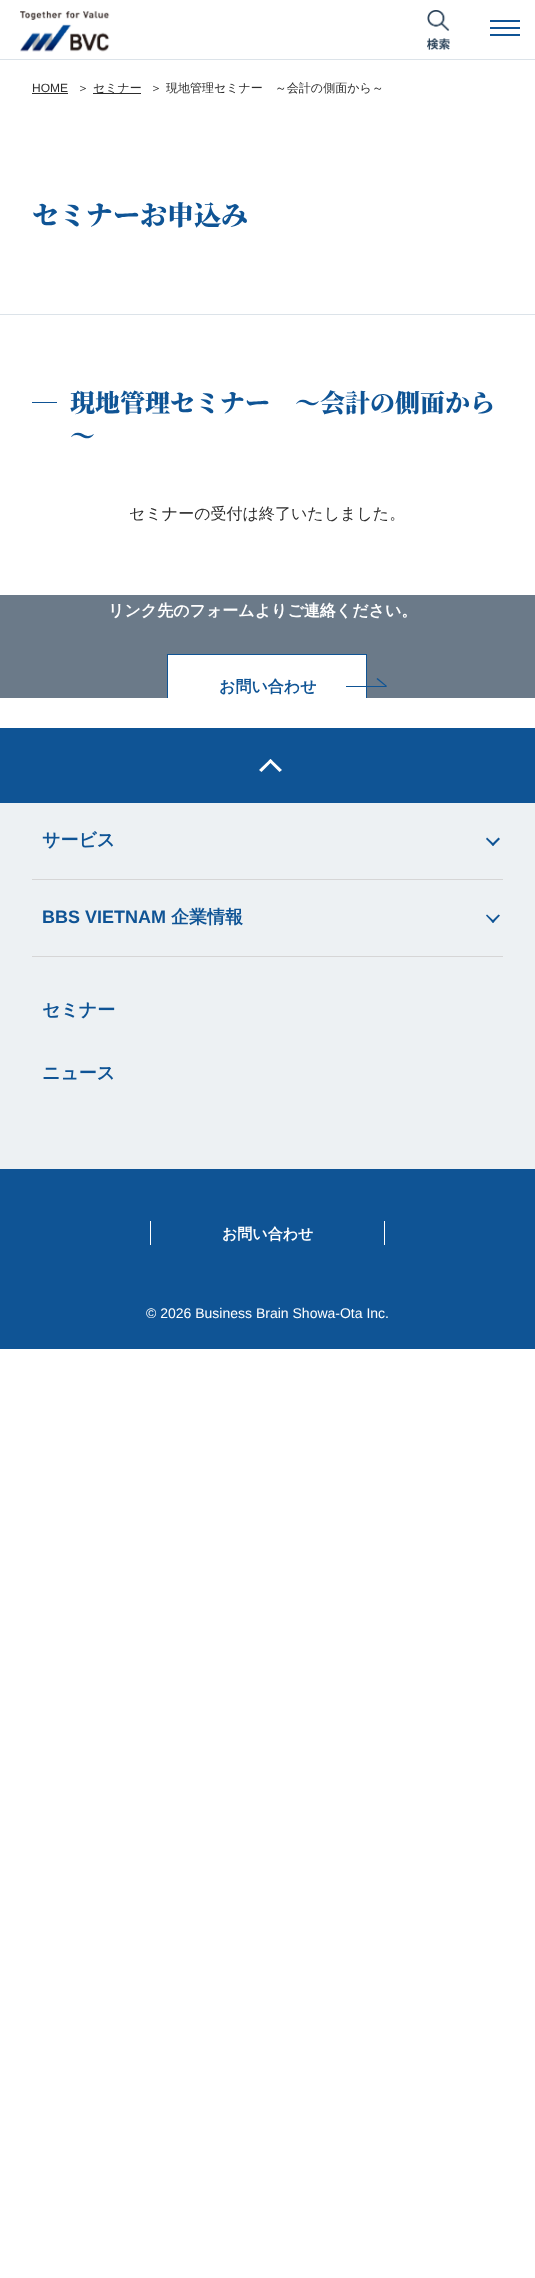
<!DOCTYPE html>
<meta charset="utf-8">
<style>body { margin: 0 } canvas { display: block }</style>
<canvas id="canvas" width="535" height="2278"></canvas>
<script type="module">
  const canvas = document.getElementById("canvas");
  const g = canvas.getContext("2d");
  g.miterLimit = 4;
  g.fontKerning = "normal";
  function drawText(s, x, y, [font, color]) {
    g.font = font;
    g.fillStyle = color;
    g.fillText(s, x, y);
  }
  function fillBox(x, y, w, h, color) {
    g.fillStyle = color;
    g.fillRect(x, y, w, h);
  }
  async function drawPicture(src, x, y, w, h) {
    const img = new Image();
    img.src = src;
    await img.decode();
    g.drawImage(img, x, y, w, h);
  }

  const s1 = ["12px Liberation Sans", "#2D2D2D"];
  const s2 = ["500 12px WenQuanYi Zen Hei", "#2D2D2D"];
  const s3 = ["900 27px Noto Serif JP", "#0F5495"];
  const s4 = ["900 25px Noto Serif JP", "#0F5495"];
  const s5 = ["500 16px WenQuanYi Zen Hei", "#2D2D2D"];
  const s6 = ["bold 16px WenQuanYi Zen Hei", "#FFFFFF"];
  const s7 = ["bold 16px WenQuanYi Zen Hei", "#0F5495"];
  const s8 = ["bold 18px WenQuanYi Zen Hei", "#0F5495"];
  const s9 = ["bold 18px Liberation Sans", "#0F5495"];
  const s10 = ["bold 15px WenQuanYi Zen Hei", "#FFFFFF"];
  const s11 = ["14px Liberation Sans", "#FFFFFF"];

  fillBox(0, 0, 535, 2278, "#FFFFFF");
  await drawPicture("pic1.png", 427, 10, 23, 40);
  fillBox(0, 59, 535, 1, "#DCE3E9");
  await drawPicture("pic2.png", 20, 11, 90, 41);
  fillBox(490, 20, 30, 2, "#0F5495");
  fillBox(490, 27, 30, 2, "#0F5495");
  fillBox(490, 34, 30, 2, "#0F5495");
  drawText("HOME", 32, 92, s1);
  fillBox(32, 93, 36, 1, "#2D2D2D");
  drawText("＞", 77, 92, s2);
  fillBox(93, 93, 48, 1, "#2D2D2D");
  drawText("セミナー", 93, 92, s2);
  drawText("＞", 150, 92, s2);
  drawText("現地管理セミナー　～会計の側面から～", 166, 92, s2);
  drawText("セミナーお申込み", 32, 225, s3);
  fillBox(0, 314, 535, 1, "#DCE3E9");
  fillBox(32, 402, 25, 1, "#0F5495");
  drawText("現地管理セミナー　～会計の側面から", 70, 412, s4);
  drawText("～", 70, 445, s4);
  drawText("セミナーの受付は終了いたしました。", 129, 519, s5);
  fillBox(0, 595, 535, 103, "#6B7A89");
  drawText("リンク先のフォームよりご連絡ください。", 108, 616, s6);
  fillBox(168, 655, 198, 43, "#FFFFFF");
  g.save();
  g.beginPath();
  g.rect(0, 595, 535, 103);
  g.clip();
  g.strokeStyle = "#0F5495";
  g.strokeRect(167.5, 654.5, 199, 63);
  g.restore();
  drawText("お問い合わせ", 219, 692, s7);
  fillBox(346, 686, 40, 1, "#0F5495");
  g.beginPath();
  g.moveTo(377.5, 678);
  g.lineTo(387, 686);
  g.lineTo(386.5, 687);
  g.lineTo(376.5, 679);
  g.closePath();
  g.fill();
  fillBox(0, 728, 535, 75, "#0F5495");
  g.fillStyle = "#FFFFFF";
  g.beginPath();
  g.moveTo(259, 770);
  g.lineTo(270.5, 759);
  g.lineTo(272.5, 761);
  g.lineTo(261.5, 772);
  g.closePath();
  g.fill();
  g.beginPath();
  g.moveTo(268.5, 761);
  g.lineTo(270.5, 759);
  g.lineTo(282, 770);
  g.lineTo(279.5, 772);
  g.closePath();
  g.fill();
  fillBox(0, 803, 535, 366, "#EDF1F3");
  fillBox(32, 879, 471, 1, "#D6D6D6");
  drawText("サービス", 42, 846, s8);
  g.beginPath();
  g.moveTo(500, 839);
  g.lineTo(493, 846);
  g.lineTo(491.5, 844.5);
  g.lineTo(498.5, 837.5);
  g.closePath();
  g.fill();
  g.beginPath();
  g.moveTo(494.5, 844.5);
  g.lineTo(493, 846);
  g.lineTo(486, 839);
  g.lineTo(487, 837.5);
  g.closePath();
  g.fill();
  fillBox(32, 956, 471, 1, "#D6D6D6");
  drawText("BBS VIETNAM", 42, 923, s9);
  drawText("企業情報", 171, 923, s8);
  g.beginPath();
  g.moveTo(500, 915.5);
  g.lineTo(493, 923);
  g.lineTo(491.5, 921.5);
  g.lineTo(498.5, 914.5);
  g.closePath();
  g.fill();
  g.beginPath();
  g.moveTo(494.5, 921.5);
  g.lineTo(493, 923);
  g.lineTo(486, 915.5);
  g.lineTo(487, 914.5);
  g.closePath();
  g.fill();
  drawText("セミナー", 42, 1016, s8);
  drawText("ニュース", 42, 1079, s8);
  fillBox(0, 1169, 535, 180, "#0F5495");
  fillBox(150, 1221, 1, 24, "#FFFFFF");
  drawText("お問い合わせ", 222, 1239, s10);
  fillBox(384, 1221, 1, 24, "#FFFFFF");
  drawText("© 2026 Business Brain Showa-Ota Inc.", 146, 1318, s11);
</script>
